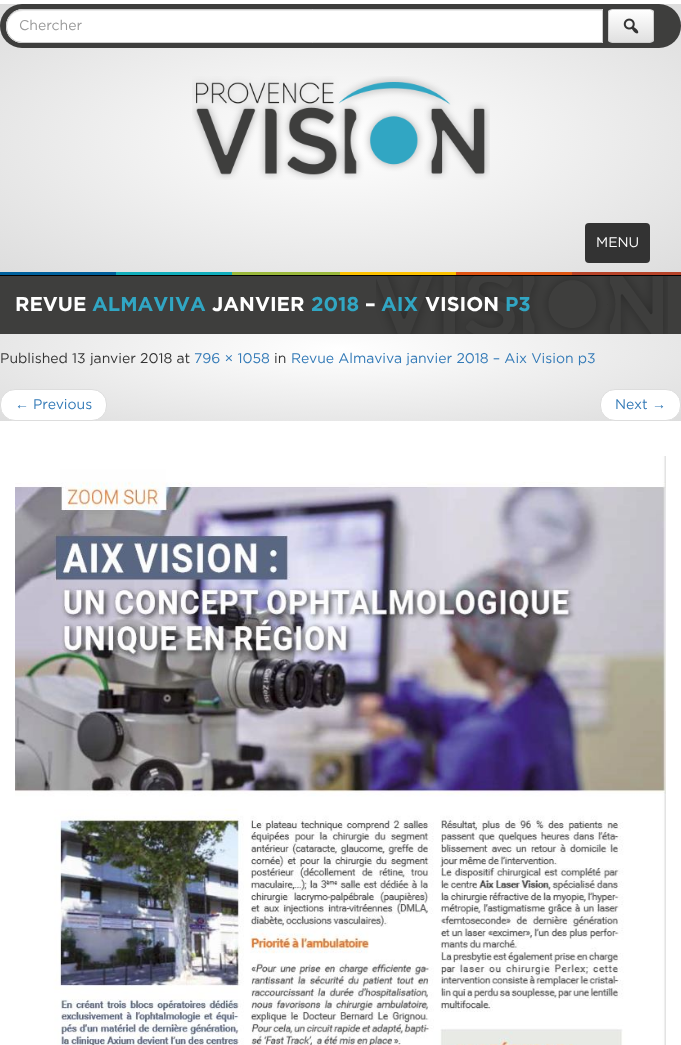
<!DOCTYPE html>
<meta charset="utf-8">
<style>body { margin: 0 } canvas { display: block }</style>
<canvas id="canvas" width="681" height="1045"></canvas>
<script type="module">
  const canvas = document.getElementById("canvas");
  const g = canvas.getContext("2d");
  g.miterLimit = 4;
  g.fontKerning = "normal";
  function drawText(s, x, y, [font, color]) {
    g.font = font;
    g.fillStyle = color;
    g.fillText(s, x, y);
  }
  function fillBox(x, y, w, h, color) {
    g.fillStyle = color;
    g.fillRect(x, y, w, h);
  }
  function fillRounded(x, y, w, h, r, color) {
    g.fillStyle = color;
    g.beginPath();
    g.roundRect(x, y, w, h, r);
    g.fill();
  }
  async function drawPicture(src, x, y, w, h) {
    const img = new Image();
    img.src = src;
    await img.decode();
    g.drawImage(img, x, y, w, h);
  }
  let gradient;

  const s1 = ["14px Gotham", "#999999"];
  const s2 = ["14px Gotham", "#FFFFFF"];
  const s3 = ["bold 20px Gotham", "#FFFFFF"];
  const s4 = ["bold 20px Gotham", "#31A6C3"];
  const s5 = ["14px Gotham", "#333333"];
  const s6 = ["14px Gotham", "#337AB7"];
  const s7 = ["14px Liberation Sans", "#337AB7"];

  fillBox(0, 0, 681, 1045, "#FFFFFF");
  gradient = g.createRadialGradient(341, 351.46, 0, 341, 351.46, 482);
  gradient.addColorStop(0, "#FFFFFF");
  gradient.addColorStop(1, "#DDDDDD");
  g.fillStyle = gradient;
  g.beginPath();
  g.rect(0, 4, 681, 268);
  g.save();
  g.clip();
  g.scale(1, 192 / 482);
  g.fillRect(0, 0, 681, 2624);
  g.restore();
  fillRounded(0, 4, 681, 44, 22, "#3E3E3D");
  g.fillStyle = "#FFFFFF";
  g.beginPath();
  g.roundRect(6, 9, 597, 34, [17, 0, 0, 16]);
  g.fill();
  g.fillStyle = "#ECECEC";
  g.beginPath();
  g.moveTo(23, 11);
  g.lineTo(602, 11);
  g.lineTo(602, 10);
  g.lineTo(20, 10);
  g.bezierCurveTo(11, 12, 6, 21, 7, 29);
  g.bezierCurveTo(7, 20, 12, 11, 23, 11);
  g.closePath();
  g.fill();
  g.beginPath();
  g.roundRect(6.5, 9.5, 596, 33, [16.5, 0, 0, 15.5]);
  g.strokeStyle = "#CCCCCC";
  g.stroke();
  drawText("Chercher", 19, 30, s1);
  g.save();
  g.beginPath();
  g.roundRect(608, 9, 46, 34, 4);
  g.clip();
  gradient = g.createLinearGradient(631, 10, 631, 42);
  gradient.addColorStop(0, "#FFFFFF");
  gradient.addColorStop(1, "#E0E0E0");
  g.fillStyle = gradient;
  g.fillRect(608, 10, 46, 32);
  g.restore();
  g.beginPath();
  g.roundRect(608.5, 9.5, 45, 33, 3.5);
  g.stroke();
  await drawPicture("pic1.png", 623, 18, 16, 16);
  await drawPicture("pic2.png", 192, 76, 298, 104);
  fillRounded(585, 223, 65, 40, 4, "#333333");
  drawText("MENU", 596, 247, s2);
  gradient = g.createLinearGradient(0, 274, 681, 274);
  gradient.addColorStop(0, "#00609C");
  gradient.addColorStop(0.17, "#00609C");
  gradient.addColorStop(0.17, "#11ADBA");
  gradient.addColorStop(0.34, "#11ADBC");
  gradient.addColorStop(0.34, "#11ADBA");
  gradient.addColorStop(0.34, "#9AB83C");
  gradient.addColorStop(0.5, "#9AB83C");
  gradient.addColorStop(0.5, "#9AB93A");
  gradient.addColorStop(0.5, "#FBBF00");
  gradient.addColorStop(0.5, "#FCC000");
  gradient.addColorStop(0.67, "#FCC000");
  gradient.addColorStop(0.67, "#DD5614");
  gradient.addColorStop(0.67, "#DF5514");
  gradient.addColorStop(0.67, "#DD5612");
  gradient.addColorStop(0.67, "#DF5514");
  gradient.addColorStop(0.83, "#DD5614");
  gradient.addColorStop(0.83, "#DF5612");
  gradient.addColorStop(0.84, "#DF5514");
  gradient.addColorStop(0.84, "#DD5612");
  gradient.addColorStop(0.84, "#DF5514");
  gradient.addColorStop(0.84, "#D45119");
  gradient.addColorStop(0.84, "#B54329");
  gradient.addColorStop(1, "#B54329");
  g.fillStyle = gradient;
  g.fillRect(0, 272, 681, 3);
  fillBox(0, 275, 681, 1, "#000000");
  gradient = g.createRadialGradient(341, 1633.18, 0, 341, 1633.18, 482);
  gradient.addColorStop(0, "#FFFFFF");
  gradient.addColorStop(1, "#DDDDDD");
  g.fillStyle = gradient;
  g.beginPath();
  g.rect(0, 334, 681, 87);
  g.save();
  g.clip();
  g.scale(1, 103 / 482);
  g.fillRect(0, 0, 681, 4891);
  g.restore();
  fillBox(0, 276, 681, 58, "#3E3E3D");
  await drawPicture("pic3.png", 376, 276, 292, 58);
  drawText("REVUE", 15, 311, s3);
  drawText("ALMAVIVA", 92, 311, s4);
  drawText("JANVIER", 212, 311, s3);
  drawText("2018", 311, 311, s4);
  drawText("–", 365, 311, s3);
  drawText("AIX", 381, 311, s4);
  drawText("VISION", 425, 311, s3);
  drawText("P3", 505, 311, s4);
  drawText("Published 13 janvier 2018 at", 0, 363, s5);
  drawText("796 × 1058", 194, 363, s6);
  drawText("in", 274, 363, s5);
  drawText("Revue Almaviva janvier 2018 – Aix Vision p3", 291, 363, s6);
  g.fillStyle = "#FFFFFF";
  g.beginPath();
  g.roundRect(0.5, 389.5, 106, 31, 14.5);
  g.fill();
  g.strokeStyle = "#DDDDDD";
  g.stroke();
  drawText("←", 15, 409, s7);
  drawText("Previous", 33, 409, s6);
  g.fillStyle = "#FFFFFF";
  g.beginPath();
  g.roundRect(600.5, 389.5, 80, 31, 14.5);
  g.fill();
  g.stroke();
  drawText("Next", 615, 409, s6);
  drawText("→", 652, 409, s7);
  await drawPicture("pic4.png", 15, 456, 651, 589);
</script>
